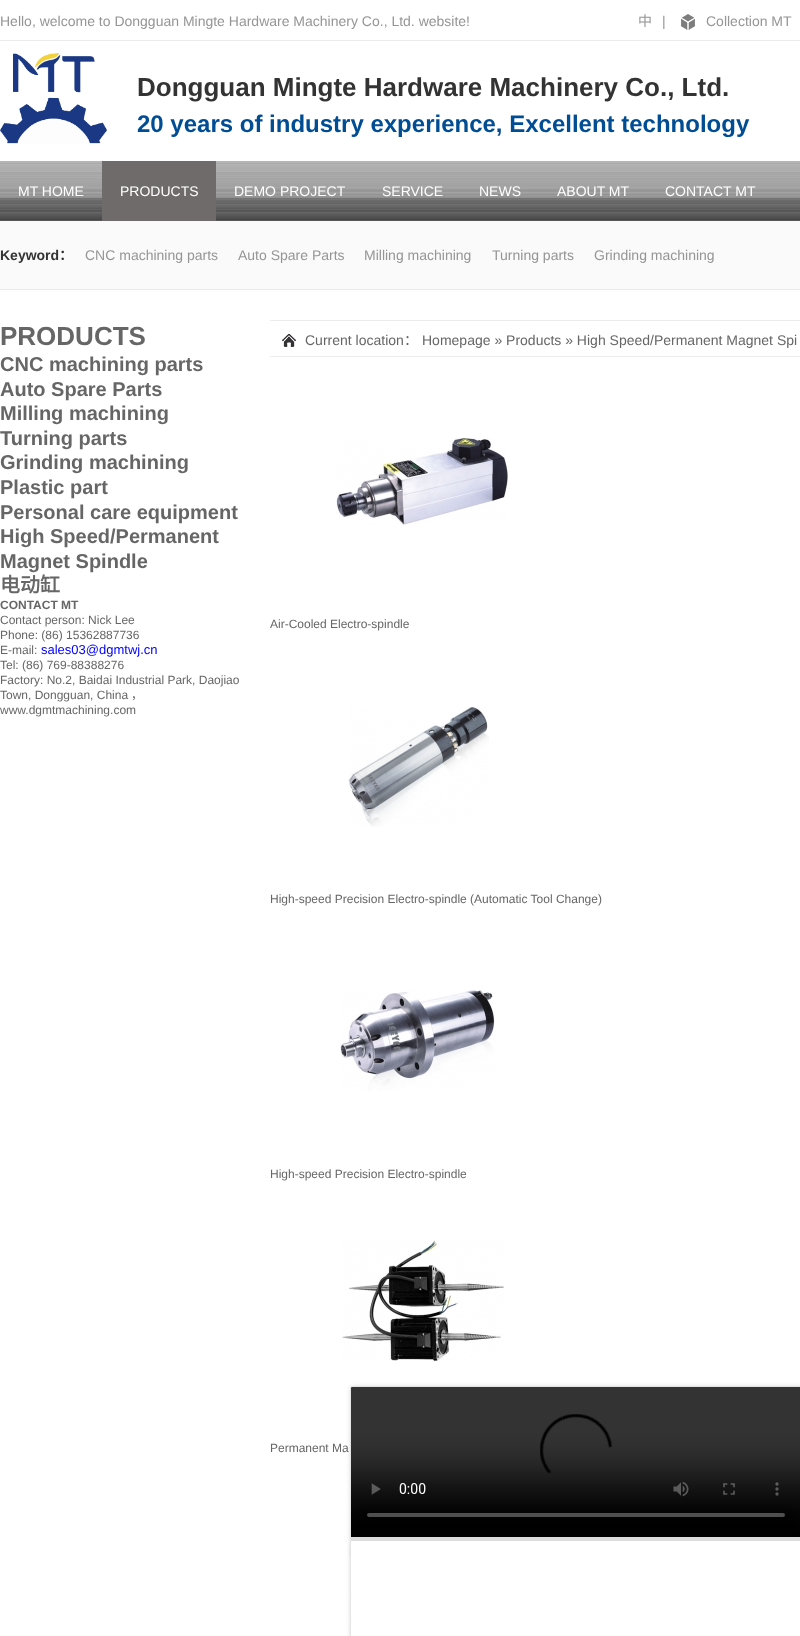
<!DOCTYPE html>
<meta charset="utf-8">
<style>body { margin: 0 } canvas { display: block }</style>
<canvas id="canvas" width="800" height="1636"></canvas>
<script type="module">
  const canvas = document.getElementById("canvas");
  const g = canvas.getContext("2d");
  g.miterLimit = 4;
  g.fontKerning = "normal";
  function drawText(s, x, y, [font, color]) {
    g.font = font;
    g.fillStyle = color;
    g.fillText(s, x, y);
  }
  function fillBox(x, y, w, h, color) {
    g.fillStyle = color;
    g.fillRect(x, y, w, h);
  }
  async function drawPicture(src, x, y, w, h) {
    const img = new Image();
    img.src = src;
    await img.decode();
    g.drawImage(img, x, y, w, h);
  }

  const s1 = ["14px Liberation Sans", "#959595"];
  const s2 = ["14px Noto Sans CJK SC", "#959595"];
  const s3 = ["bold 26px Liberation Sans", "#333333"];
  const s4 = ["bold 24px Liberation Sans", "#004D94"];
  const s5 = ["14px Liberation Sans", "#FFFFFF"];
  const s6 = ["bold 14px Liberation Sans", "#333333"];
  const s7 = ["bold 14px Noto Sans CJK SC", "#333333"];
  const s8 = ["bold 26px Liberation Sans", "#666666"];
  const s9 = ["bold 20px Liberation Sans", "#666666"];
  const s10 = ["bold 20px Noto Sans CJK SC", "#666666"];
  const s11 = ["bold 12px Liberation Sans", "#666666"];
  const s12 = ["12px Liberation Sans", "#666666"];
  const s13 = ["13px Liberation Sans", "#0000FF"];
  const s14 = ["12px Noto Sans CJK SC", "#666666"];
  const s15 = ["14px Liberation Sans", "#666666"];
  const s16 = ["14px Noto Sans CJK SC", "#666666"];

  fillBox(0, 0, 800, 1636, "#FFFFFF");
  fillBox(0, 40, 800, 1, "#EBEBEB");
  drawText("Hello, welcome to Dongguan Mingte Hardware Machinery Co., Ltd. website!", 0, 26, s1);
  drawText("中", 638, 26, s2);
  drawText("|", 662, 26, s1);
  await drawPicture("pic1.png", 681, 14, 14, 16);
  drawText("Collection MT", 706, 26, s1);
  await drawPicture("pic2.png", 0, 53, 107, 91);
  drawText("Dongguan Mingte Hardware Machinery Co., Ltd.", 137, 96, s3);
  drawText("20 years of industry experience, Excellent technology", 137, 132, s4);
  await drawPicture("pic3.png", 0, 161, 800, 60);
  drawText("MT HOME", 18, 196, s5);
  fillBox(102, 161, 114, 60, "#6F6B6B");
  drawText("PRODUCTS", 120, 196, s5);
  drawText("DEMO PROJECT", 234, 196, s5);
  drawText("SERVICE", 382, 196, s5);
  drawText("NEWS", 479, 196, s5);
  drawText("ABOUT MT", 557, 196, s5);
  drawText("CONTACT MT", 665, 196, s5);
  fillBox(0, 221, 800, 68, "#FAFAFA");
  fillBox(0, 289, 800, 1, "#EBEBEB");
  drawText("Keyword", 0, 260, s6);
  drawText("：", 59, 260, s7);
  drawText("CNC machining parts", 85, 260, s1);
  drawText("Auto Spare Parts", 238, 260, s1);
  drawText("Milling machining", 364, 260, s1);
  drawText("Turning parts", 492, 260, s1);
  drawText("Grinding machining", 594, 260, s1);
  drawText("PRODUCTS", 0, 345, s8);
  drawText("CNC machining parts", 0, 371, s9);
  drawText("Auto Spare Parts", 0, 396, s9);
  drawText("Milling machining", 0, 420, s9);
  drawText("Turning parts", 0, 445, s9);
  drawText("Grinding machining", 0, 469, s9);
  drawText("Plastic part", 0, 494, s9);
  drawText("Personal care equipment", 0, 519, s9);
  drawText("High Speed/Permanent", 0, 543, s9);
  drawText("Magnet Spindle", 0, 568, s9);
  drawText("电动缸", 0, 592, s10);
  drawText("CONTACT MT", 0, 609, s11);
  drawText("Contact person: Nick Lee", 0, 624, s12);
  drawText("Phone: (86) 15362887736", 0, 639, s12);
  drawText("E-mail: ‍", 0, 654, s12);
  drawText("sales03@dgmtwj.cn", 41, 654, s13);
  drawText("Tel: (86) 769-88388276", 0, 669, s12);
  drawText("Factory: No.2, Baidai Industrial Park, Daojiao", 0, 684, s12);
  drawText("Town, Dongguan, China", 0, 699, s12);
  drawText("，", 131, 699, s14);
  drawText("www.dgmtmachining.com", 0, 714, s12);
  await drawPicture("pic4.png", 282, 334, 14, 13);
  fillBox(270, 320, 530, 1, "#ECECEC");
  fillBox(270, 356, 530, 1, "#ECECEC");
  drawText("Current location", 305, 345, s15);
  drawText("：", 404, 345, s16);
  drawText("Homepage » Products » High Speed/Permanent Magnet Spi", 422, 345, s15);
  await drawPicture("pic5.png", 336, 438, 172, 87);
  drawText("Air-Cooled Electro-spindle", 270, 628, s12);
  await drawPicture("pic6.png", 348, 707, 141, 120);
  drawText("High-speed Precision Electro-spindle (Automatic Tool Change)", 270, 903, s12);
  await drawPicture("pic7.png", 340, 990, 155, 101);
  drawText("High-speed Precision Electro-spindle", 270, 1178, s12);
  await drawPicture("pic8.png", 342, 1240, 162, 121);
  drawText("Permanent Ma", 270, 1452, s12);
  await drawPicture("pic9.png", 349, 1519, 1, 117);
  g.fillStyle = "rgba(0, 0, 0, 0.2)";
  g.filter = "blur(2.5px)";
  g.beginPath();
  g.roundRect(351, 1387, 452, 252, 2);
  g.fill();
  g.filter = "none";
  g.fillStyle = "#FFFFFF";
  g.beginPath();
  g.roundRect(350.5, 1386.5, 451, 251, 1.5);
  g.fill();
  g.strokeStyle = "#E5E5E5";
  g.stroke();
  await drawPicture("pic10.png", 351, 1387, 449, 154);
</script>
